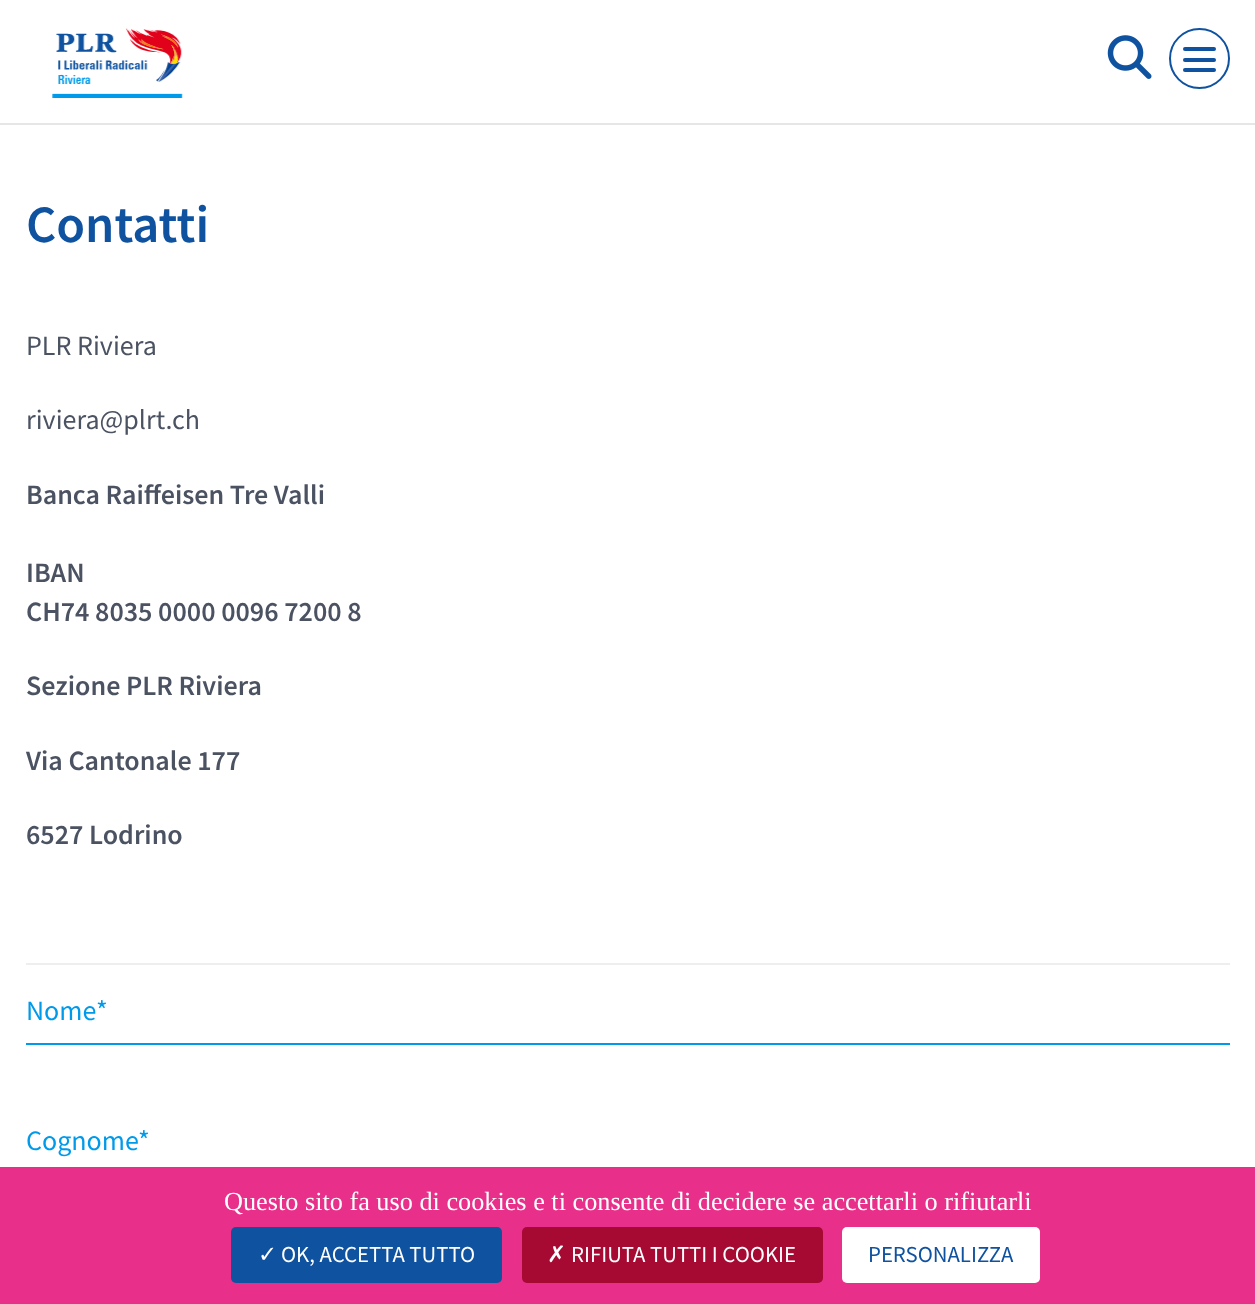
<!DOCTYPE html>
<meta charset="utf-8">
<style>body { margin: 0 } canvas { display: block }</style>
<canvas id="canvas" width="1255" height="1304"></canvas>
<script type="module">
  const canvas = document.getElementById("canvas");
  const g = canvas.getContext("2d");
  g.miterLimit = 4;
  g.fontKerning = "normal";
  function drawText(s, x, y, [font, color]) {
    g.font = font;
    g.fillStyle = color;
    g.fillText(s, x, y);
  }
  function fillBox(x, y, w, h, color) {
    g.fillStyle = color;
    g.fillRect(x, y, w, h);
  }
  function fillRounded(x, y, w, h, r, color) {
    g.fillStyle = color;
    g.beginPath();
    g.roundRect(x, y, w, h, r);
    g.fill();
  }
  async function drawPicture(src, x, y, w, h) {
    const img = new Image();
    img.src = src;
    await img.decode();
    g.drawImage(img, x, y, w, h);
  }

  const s1 = ["600 52.5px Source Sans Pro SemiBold", "#0E52A0"];
  const s2 = ["28px Source Sans Pro", "#4B5261"];
  const s3 = ["600 28px Source Sans Pro SemiBold", "#4B5261"];
  const s4 = ["28px Source Sans Pro", "#009AEA"];
  const s5 = ["26.25px Liberation Serif", "#FFFFFF"];
  const s6 = ["22.75px DejaVu Sans", "#FFFFFF"];
  const s7 = ["22.75px Source Sans Pro", "#FFFFFF"];
  const s8 = ["22.75px Source Sans Pro", "#0E52A0"];

  fillBox(0, 0, 1255, 1304, "#FFFFFF");
  fillBox(0, 123, 1255, 2, "#E6E6E6");
  await drawPicture("pic1.png", 52, 28, 131, 70);
  await drawPicture("pic2.png", 1107, 35, 45, 44);
  g.beginPath();
  g.arc(1199.5, 58.5, 29.5, 0, Math.PI * 2);
  g.strokeStyle = "#0E52A0";
  g.lineWidth = 2;
  g.stroke();
  fillRounded(1183, 47, 33, 4, 2, "#0E52A0");
  fillRounded(1183, 58, 33, 4, 2, "#0E52A0");
  fillRounded(1183, 68, 33, 4, 2, "#0E52A0");
  drawText("Contatti", 26, 242, s1);
  drawText("PLR Riviera", 26, 355, s2);
  drawText("riviera@plrt.ch", 26, 429, s2);
  drawText("Banca Raiffeisen Tre Valli", 26, 504, s3);
  drawText("IBAN", 26, 582, s3);
  drawText("CH74 8035 0000 0096 7200 8", 26, 621, s3);
  drawText("Sezione PLR Riviera", 26, 695, s3);
  drawText("Via Cantonale 177", 26, 770, s3);
  drawText("6527 Lodrino", 26, 844, s3);
  fillBox(26, 963, 1204, 2, "#EEEEEE");
  drawText("Nome", 26, 1020, s4);
  drawText("*", 96, 1020, s4);
  fillBox(26, 1043, 1204, 2, "#009AEA");
  drawText("Cognome", 26, 1150, s4);
  drawText("*", 138, 1150, s4);
  fillBox(0, 1167, 1255, 137, "#E8308A");
  drawText("Questo sito fa uso di cookies e ti consente di decidere se accettarli o rifiutarli", 224, 1210, s5);
  fillRounded(231, 1227, 271, 56, 5, "#0E52A0");
  drawText("✓", 258, 1262, s6);
  drawText("OK, ACCETTA TUTTO", 281, 1262, s7);
  fillRounded(522, 1227, 301, 56, 5, "#A60A33");
  drawText("✗", 547, 1262, s6);
  drawText("RIFIUTA TUTTI I COOKIE", 571, 1262, s7);
  fillRounded(842, 1227, 198, 56, 5, "#FFFFFF");
  drawText("PERSONALIZZA", 868, 1262, s8);
</script>
